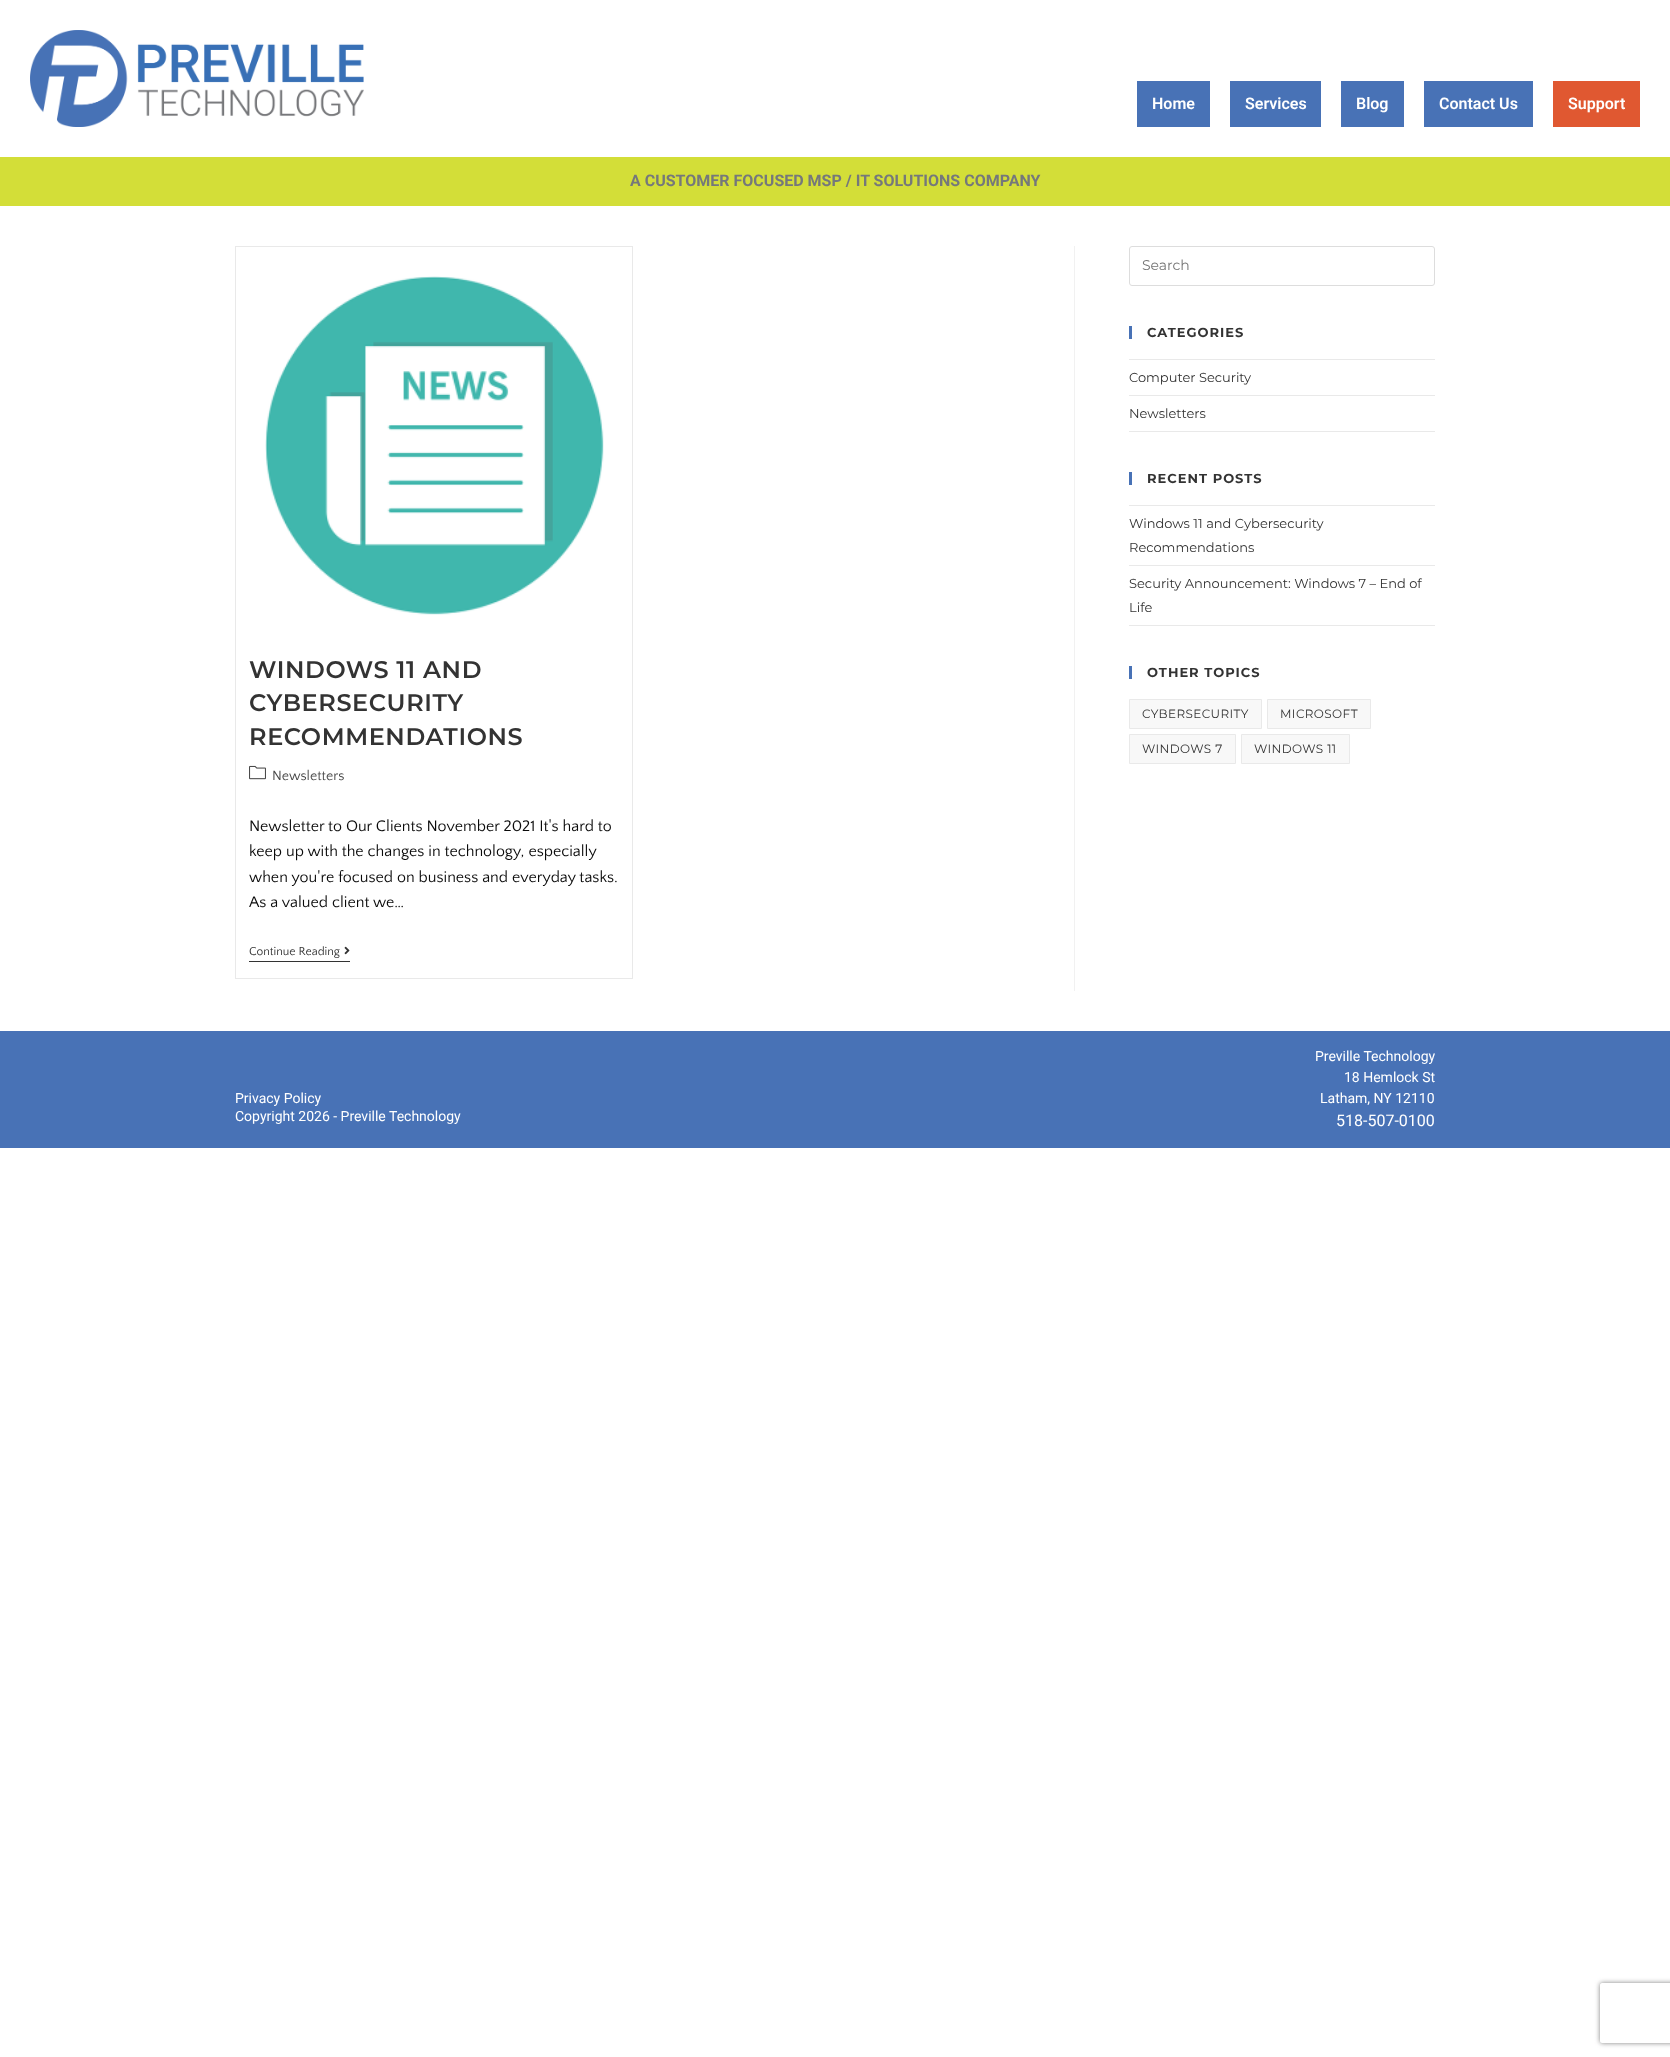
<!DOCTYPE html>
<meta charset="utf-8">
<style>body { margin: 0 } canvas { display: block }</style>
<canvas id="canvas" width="1670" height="2057"></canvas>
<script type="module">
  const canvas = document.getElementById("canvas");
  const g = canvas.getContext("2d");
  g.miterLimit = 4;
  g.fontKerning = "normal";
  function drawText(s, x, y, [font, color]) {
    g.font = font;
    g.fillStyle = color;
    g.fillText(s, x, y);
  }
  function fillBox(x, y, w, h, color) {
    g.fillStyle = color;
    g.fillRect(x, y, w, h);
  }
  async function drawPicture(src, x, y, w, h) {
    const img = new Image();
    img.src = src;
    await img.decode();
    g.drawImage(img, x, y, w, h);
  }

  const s1 = ["600 16px Roboto", "#FFFFFF"];
  const s2 = ["bold 16px Roboto", "#75787B"];
  const s3 = ["14px Montserrat", "#757575"];
  const s4 = ["bold 13px Montserrat", "#333333"];
  const s5 = ["13px Montserrat", "#333333"];
  const s6 = ["12px Montserrat", "#333333"];
  const s7 = ["600 24px Montserrat", "#333333"];
  const s8 = ["14px Quattrocento Sans", "#4A4A4A"];
  const s9 = ["16px Quattrocento Sans", "#0A0A0A"];
  const s10 = ["12px Quattrocento Sans", "#333333"];
  const s11 = ["14px Roboto", "#FFFFFF"];
  const s12 = ["16px Roboto", "#FFFFFF"];

  fillBox(0, 0, 1670, 2057, "#FFFFFF");
  await drawPicture("pic1.png", 30, 30, 334, 97);
  fillBox(1137, 81, 73, 46, "#4872B6");
  drawText("Home", 1152, 109, s1);
  fillBox(1230, 81, 91, 46, "#4872B6");
  drawText("Services", 1245, 109, s1);
  fillBox(1341, 81, 63, 46, "#4872B6");
  drawText("Blog", 1356, 109, s1);
  fillBox(1424, 81, 109, 46, "#4872B6");
  drawText("Contact Us", 1439, 109, s1);
  fillBox(1553, 81, 87, 46, "#E05831");
  drawText("Support", 1568, 109, s1);
  fillBox(0, 157, 1670, 49, "#D3DE38");
  drawText("A CUSTOMER FOCUSED MSP / IT SOLUTIONS COMPANY", 630, 186, s2);
  g.beginPath();
  g.roundRect(1129.5, 246.5, 305, 39, 2.5);
  g.strokeStyle = "#DDDDDD";
  g.stroke();
  drawText("Search", 1142, 270, s3);
  fillBox(1129, 326, 3, 13, "#4872B6");
  g.letterSpacing = "1px";
  drawText("CATEGORIES", 1147, 337, s4);
  fillBox(1129, 359, 306, 1, "#E9E9E9");
  fillBox(1129, 395, 306, 1, "#E9E9E9");
  g.letterSpacing = "0px";
  drawText("Computer Security", 1129, 382, s5);
  fillBox(1129, 431, 306, 1, "#E9E9E9");
  drawText("Newsletters", 1129, 418, s5);
  fillBox(1129, 472, 3, 13, "#4872B6");
  g.letterSpacing = "1px";
  drawText("RECENT POSTS", 1147, 483, s4);
  fillBox(1129, 505, 306, 1, "#E9E9E9");
  fillBox(1129, 565, 306, 1, "#E9E9E9");
  g.letterSpacing = "0px";
  drawText("Windows 11 and Cybersecurity", 1129, 528, s5);
  drawText("Recommendations", 1129, 552, s5);
  fillBox(1129, 625, 306, 1, "#E9E9E9");
  drawText("Security Announcement: Windows 7 – End of", 1129, 588, s5);
  drawText("Life", 1129, 612, s5);
  fillBox(1129, 666, 3, 13, "#4872B6");
  g.letterSpacing = "1px";
  drawText("OTHER TOPICS", 1147, 677, s4);
  g.fillStyle = "#F8F8F8";
  g.beginPath();
  g.rect(1129.5, 699.5, 132, 29);
  g.fill();
  g.strokeStyle = "#E9E9E9";
  g.stroke();
  g.letterSpacing = "0.4px";
  drawText("CYBERSECURITY", 1142, 718, s6);
  g.fillStyle = "#F8F8F8";
  g.beginPath();
  g.rect(1267.5, 699.5, 103, 29);
  g.fill();
  g.stroke();
  drawText("MICROSOFT", 1280, 718, s6);
  g.fillStyle = "#F8F8F8";
  g.beginPath();
  g.rect(1129.5, 734.5, 106, 29);
  g.fill();
  g.stroke();
  drawText("WINDOWS 7", 1142, 753, s6);
  g.fillStyle = "#F8F8F8";
  g.beginPath();
  g.rect(1241.5, 734.5, 108, 29);
  g.fill();
  g.stroke();
  drawText("WINDOWS 11", 1254, 753, s6);
  fillBox(1074, 246, 1, 745, "#F1F1F1");
  g.strokeRect(235.5, 246.5, 397, 732);
  await drawPicture("pic2.png", 265, 276, 339, 339);
  g.letterSpacing = "0.6px";
  drawText("WINDOWS 11 AND", 249, 678, s7);
  drawText("CYBERSECURITY", 249, 711, s7);
  drawText("RECOMMENDATIONS", 249, 745, s7);
  await drawPicture("pic3.png", 249, 765, 17, 15);
  g.letterSpacing = "0px";
  drawText("Newsletters", 272, 780, s8);
  drawText("Newsletter to Our Clients November 2021 It's hard to", 249, 831, s9);
  drawText("keep up with the changes in technology, especially", 249, 856, s9);
  drawText("when you're focused on business and everyday tasks.", 249, 882, s9);
  drawText("As a valued client we…", 249, 907, s9);
  fillBox(249, 961, 101, 1, "#333333");
  drawText("Continue Reading", 249, 955, s10);
  await drawPicture("pic4.png", 344, 946, 6, 9);
  fillBox(0, 1031, 1670, 117, "#4872B6");
  drawText("Preville Technology", 1315, 1061, s11);
  drawText("18 Hemlock St", 1344, 1082, s11);
  drawText("Privacy Policy", 235, 1103, s11);
  drawText("Latham, NY 12110", 1320, 1103, s11);
  drawText("Copyright 2026 - Preville Technology", 235, 1121, s11);
  drawText("518-507-0100", 1336, 1126, s12);
  g.save();
  g.beginPath();
  g.moveTo(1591, 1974);
  g.lineTo(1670, 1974);
  g.lineTo(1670, 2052);
  g.lineTo(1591, 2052);
  g.closePath();
  g.moveTo(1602, 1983);
  g.lineTo(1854, 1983);
  g.bezierCurveTo(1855, 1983, 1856, 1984, 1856, 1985);
  g.lineTo(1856, 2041);
  g.bezierCurveTo(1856, 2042, 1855, 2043, 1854, 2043);
  g.lineTo(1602, 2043);
  g.bezierCurveTo(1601, 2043, 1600, 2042, 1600, 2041);
  g.lineTo(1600, 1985);
  g.bezierCurveTo(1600, 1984, 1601, 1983, 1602, 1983);
  g.closePath();
  g.clip("evenodd");
  g.fillStyle = "#808080";
  g.filter = "blur(2.5px)";
  g.beginPath();
  g.roundRect(1600, 1983, 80, 60, 2);
  g.fill();
  g.filter = "none";
  g.restore();
</script>
